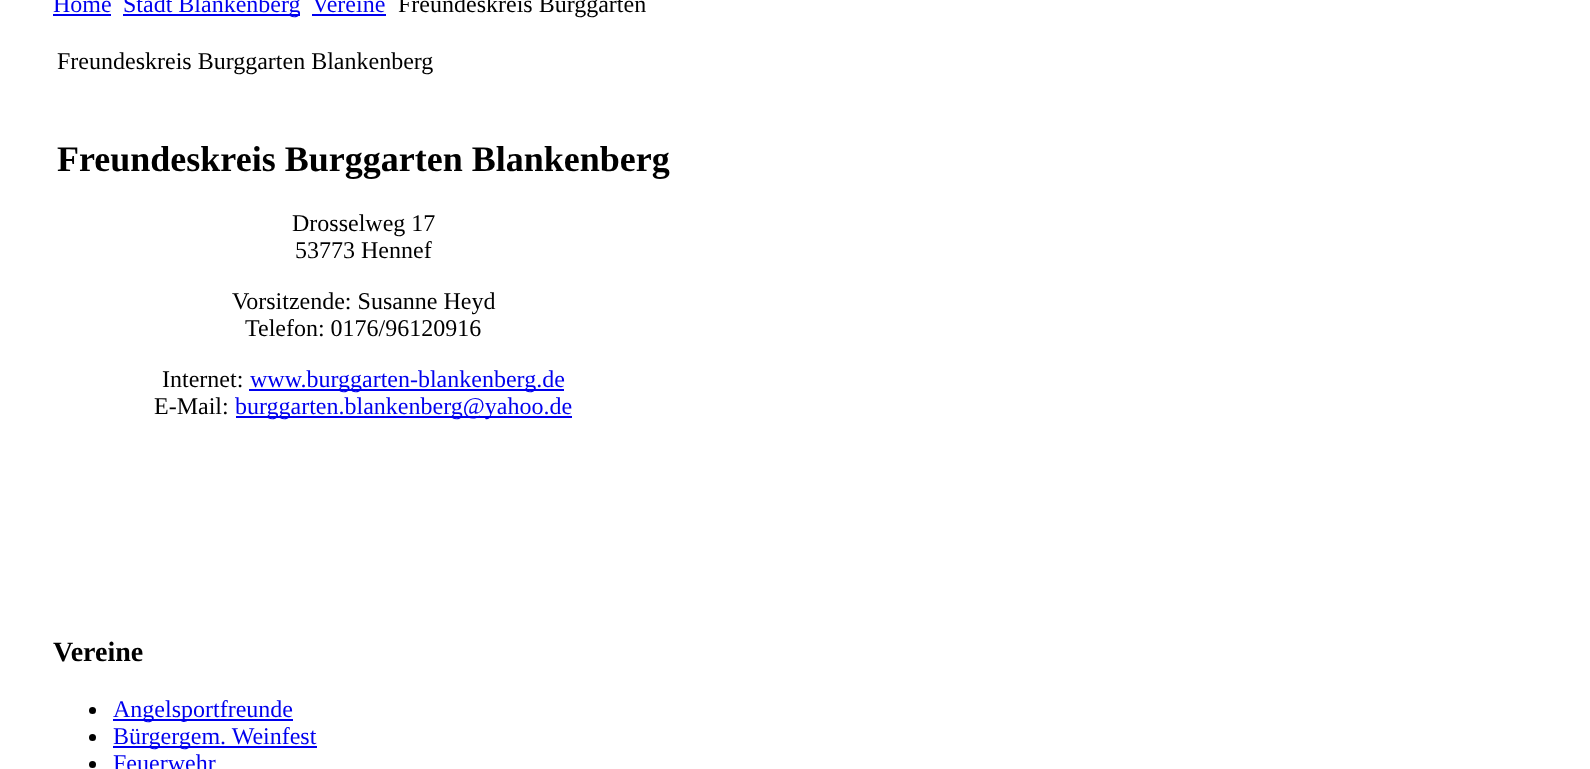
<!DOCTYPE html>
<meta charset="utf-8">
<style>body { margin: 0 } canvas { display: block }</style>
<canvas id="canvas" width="1590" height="769"></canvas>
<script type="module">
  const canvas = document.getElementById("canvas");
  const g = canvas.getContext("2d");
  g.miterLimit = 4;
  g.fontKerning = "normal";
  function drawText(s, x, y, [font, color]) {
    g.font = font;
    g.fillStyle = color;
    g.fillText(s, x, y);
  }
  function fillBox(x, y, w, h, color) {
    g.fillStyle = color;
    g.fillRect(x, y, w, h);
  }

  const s1 = ["24px Liberation Serif", "#0000EE"];
  const s2 = ["24px Liberation Serif", "#000000"];
  const s3 = ["bold 36px Liberation Serif", "#000000"];
  const s4 = ["bold 28px Liberation Serif", "#000000"];

  fillBox(0, 0, 1590, 769, "#FFFFFF");
  drawText("Home", 53, 12, s1);
  fillBox(53, 14, 58, 2, "#0000EE");
  fillBox(123, 14, 177, 2, "#0000EE");
  drawText("Stadt Blankenberg", 123, 12, s1);
  drawText("Vereine", 312, 12, s1);
  fillBox(312, 14, 74, 2, "#0000EE");
  drawText("Freundeskreis Burggarten", 398, 12, s2);
  drawText("Freundeskreis Burggarten Blankenberg", 57, 69, s2);
  drawText("Freundeskreis Burggarten Blankenberg", 57, 171, s3);
  drawText("Drosselweg 17", 292, 231, s2);
  drawText("53773 Hennef", 295, 258, s2);
  drawText("Vorsitzende: Susanne Heyd", 232, 309, s2);
  drawText("Telefon: 0176/96120916", 245, 336, s2);
  drawText("Internet:", 162, 387, s2);
  fillBox(249, 389, 315, 2, "#0000EE");
  drawText("www.burggarten-blankenberg.de", 250, 387, s1);
  drawText("E-Mail:", 154, 414, s2);
  fillBox(236, 416, 336, 2, "#0000EE");
  drawText("burggarten.blankenberg@yahoo.de", 235, 414, s1);
  drawText("Vereine", 53, 661, s4);
  g.beginPath();
  g.arc(92.5, 710.5, 3.5, 0, Math.PI * 2);
  g.fill();
  fillBox(113, 719, 180, 2, "#0000EE");
  drawText("Angelsportfreunde", 113, 717, s1);
  g.fillStyle = "#000000";
  g.beginPath();
  g.arc(92.5, 737.5, 3.5, 0, Math.PI * 2);
  g.fill();
  fillBox(113, 746, 204, 2, "#0000EE");
  drawText("Bürgergem. Weinfest", 113, 744, s1);
  g.fillStyle = "#000000";
  g.beginPath();
  g.arc(92.5, 764.5, 3.5, 0, Math.PI * 2);
  g.fill();
  drawText("Feuerwehr", 113, 771, s1);
</script>
